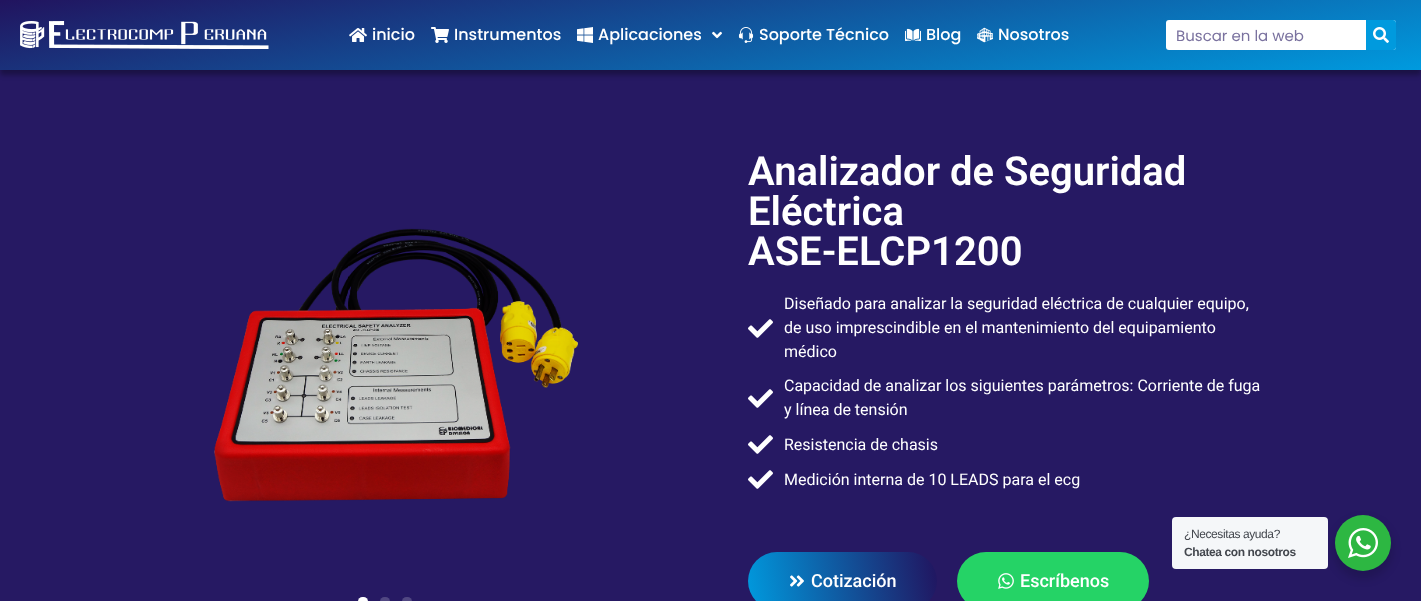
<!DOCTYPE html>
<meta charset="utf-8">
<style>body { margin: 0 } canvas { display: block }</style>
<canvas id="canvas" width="1421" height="601"></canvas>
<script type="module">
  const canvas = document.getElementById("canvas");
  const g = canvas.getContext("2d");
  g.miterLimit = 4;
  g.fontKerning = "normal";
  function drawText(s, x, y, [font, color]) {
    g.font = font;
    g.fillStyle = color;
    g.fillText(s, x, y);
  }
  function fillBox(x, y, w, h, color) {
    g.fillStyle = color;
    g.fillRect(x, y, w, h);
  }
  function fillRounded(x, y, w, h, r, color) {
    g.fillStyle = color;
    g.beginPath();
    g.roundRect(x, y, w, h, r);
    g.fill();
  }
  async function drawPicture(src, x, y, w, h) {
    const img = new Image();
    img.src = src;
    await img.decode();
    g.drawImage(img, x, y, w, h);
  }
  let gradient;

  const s1 = ["500 16px Poppins", "#FFFFFF"];
  const s2 = ["15px Poppins", "#7A729F"];
  const s3 = ["600 40px Roboto", "#FFFFFF"];
  const s4 = ["16px Roboto", "#FFFFFF"];
  const s5 = ["500 18px Roboto", "#FFFFFF"];
  const s6 = ["12px Liberation Sans", "#43474E"];
  const s7 = ["bold 12px Liberation Sans", "#43474E"];

  fillBox(0, 0, 1421, 601, "#261963");
  g.fillStyle = "rgba(0, 0, 0, 0.3)";
  g.filter = "blur(2.5px)";
  g.beginPath();
  g.rect(0, 5, 1421, 70);
  g.fill();
  g.filter = "none";
  gradient = g.createLinearGradient(683, -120, 738, 190);
  gradient.addColorStop(0, "#21145F");
  gradient.addColorStop(1, "#009ADE");
  g.fillStyle = gradient;
  g.fillRect(0, 0, 1421, 70);
  await drawPicture("pic1.png", 20, 21, 249, 28);
  await drawPicture("pic2.png", 349, 28, 18, 14);
  drawText("inicio", 372, 40, s1);
  await drawPicture("pic3.png", 431, 27, 18, 16);
  drawText("Instrumentos", 454, 40, s1);
  await drawPicture("pic4.png", 577, 27, 16, 16);
  drawText("Aplicaciones", 598, 40, s1);
  await drawPicture("pic5.png", 712, 31, 10, 8);
  await drawPicture("pic6.png", 738, 27, 16, 16);
  drawText("Soporte Técnico", 759, 40, s1);
  await drawPicture("pic7.png", 905, 28, 16, 14);
  drawText("Blog", 926, 40, s1);
  await drawPicture("pic8.png", 977, 27, 16, 16);
  drawText("Nosotros", 998, 40, s1);
  fillRounded(1166, 20, 230, 30, 3, "#FFFFFF");
  drawText("Buscar en la web", 1176, 41, s2);
  g.fillStyle = "#009ADE";
  g.beginPath();
  g.roundRect(1366, 20, 30, 30, [0, 3, 3, 0]);
  g.fill();
  await drawPicture("pic9.png", 1373, 27, 16, 16);
  await drawPicture("pic10.png", 214, 228, 364, 274);
  fillRounded(358, 597, 10, 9, 5, "#FFFFFF");
  fillRounded(380, 597, 10, 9, 5, "#514782");
  fillRounded(402, 597, 10, 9, 5, "#514782");
  drawText("Analizador de Seguridad", 748, 185, s3);
  drawText("Eléctrica", 748, 225, s3);
  drawText("ASE-ELCP1200", 748, 265, s3);
  await drawPicture("pic11.png", 748, 319, 25, 19);
  drawText("Diseñado para analizar la seguridad eléctrica de cualquier equipo,", 784, 309, s4);
  drawText("de uso imprescindible en el mantenimiento del equipamiento", 784, 333, s4);
  drawText("médico", 784, 357, s4);
  await drawPicture("pic11.png", 748, 389, 25, 19);
  drawText("Capacidad de analizar los siguientes parámetros: Corriente de fuga", 784, 391, s4);
  drawText("y línea de tensión", 784, 415, s4);
  await drawPicture("pic11.png", 748, 435, 25, 19);
  drawText("Resistencia de chasis", 784, 450, s4);
  await drawPicture("pic11.png", 748, 470, 25, 19);
  drawText("Medición interna de 10 LEADS para el ecg", 784, 485, s4);
  gradient = g.createLinearGradient(939, 564, 746, 598);
  gradient.addColorStop(0, "#21145F");
  gradient.addColorStop(1, "#009ADE");
  g.fillStyle = gradient;
  g.beginPath();
  g.roundRect(748, 552, 189, 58, 29);
  g.fill();
  await drawPicture("pic12.png", 790, 575, 14, 12);
  drawText("Cotización", 811, 587, s5);
  fillRounded(957, 552, 192, 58, 29, "#25D366");
  await drawPicture("pic13.png", 998, 573, 16, 16);
  drawText("Escríbenos", 1020, 587, s5);
  g.fillStyle = "rgba(0, 0, 0, 0.14)";
  g.filter = "blur(4px)";
  g.beginPath();
  g.roundRect(1333, 519, 60, 60, 30);
  g.fill();
  g.filter = "none";
  fillRounded(1172, 517, 156, 52, 4, "#F5F7F9");
  g.letterSpacing = "-0.4px";
  drawText("¿Necesitas ayuda?", 1184, 538, s6);
  drawText("Chatea con nosotros", 1184, 556, s7);
  g.fillStyle = "#2DB742";
  g.beginPath();
  g.arc(1363, 543, 28, 0, Math.PI * 2);
  g.fill();
  await drawPicture("pic14.png", 1348, 528, 30, 30);
</script>
